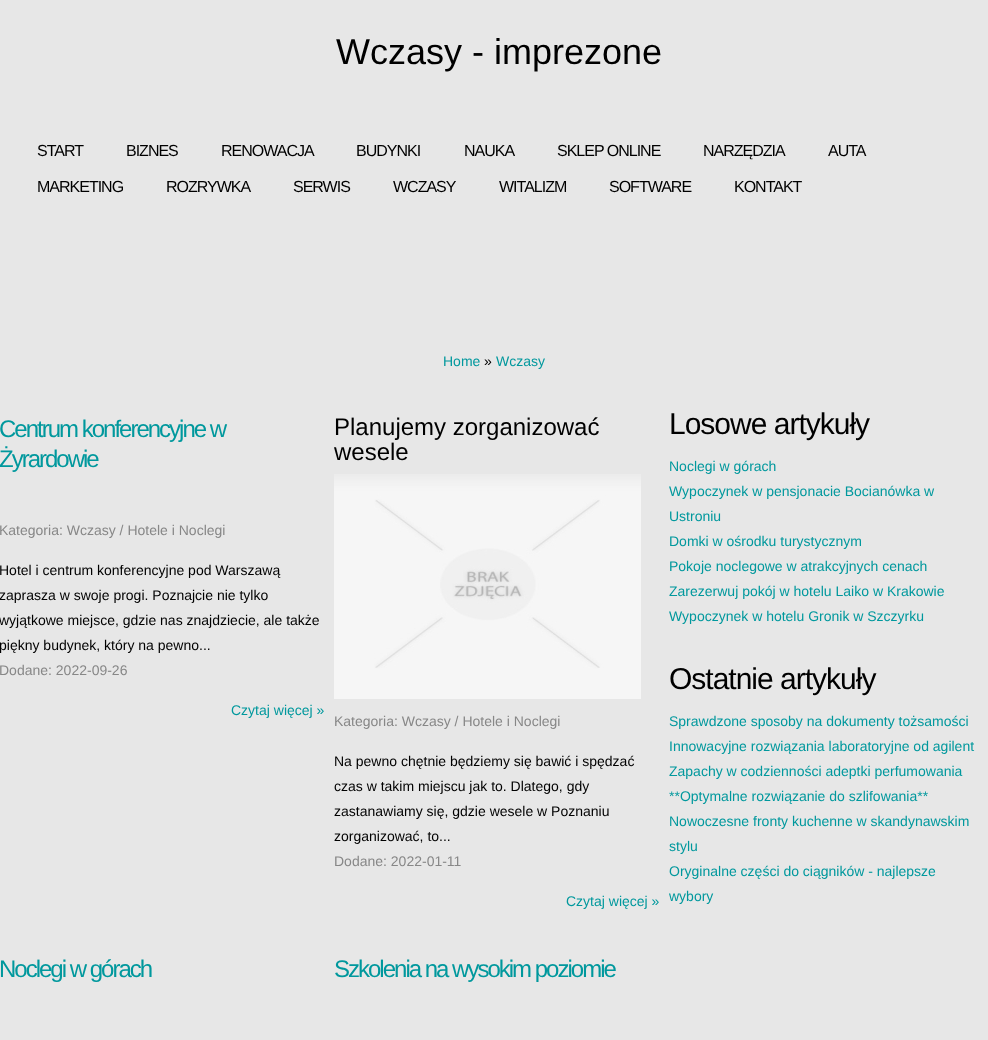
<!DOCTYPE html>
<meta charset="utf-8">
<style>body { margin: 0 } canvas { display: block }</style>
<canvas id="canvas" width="988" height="1040"></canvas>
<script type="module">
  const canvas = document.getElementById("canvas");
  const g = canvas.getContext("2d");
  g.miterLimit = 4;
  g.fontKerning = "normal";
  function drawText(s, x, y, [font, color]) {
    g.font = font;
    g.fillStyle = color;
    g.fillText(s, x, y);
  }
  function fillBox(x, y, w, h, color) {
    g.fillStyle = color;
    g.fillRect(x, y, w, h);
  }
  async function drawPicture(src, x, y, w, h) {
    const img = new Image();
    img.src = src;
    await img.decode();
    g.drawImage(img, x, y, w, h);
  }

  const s1 = ["36px Liberation Sans", "#000000"];
  const s2 = ["16px Liberation Sans", "#000000"];
  const s3 = ["14px Liberation Sans", "#00989D"];
  const s4 = ["14px Liberation Sans", "#000000"];
  const s5 = ["24px Liberation Sans", "#00989D"];
  const s6 = ["14px Liberation Sans", "#878787"];
  const s7 = ["24px Liberation Sans", "#000000"];
  const s8 = ["30px Liberation Sans", "#000000"];

  fillBox(0, 0, 988, 1040, "#E7E7E7");
  drawText("Wczasy - imprezone", 336, 64, s1);
  g.letterSpacing = "-1px";
  drawText("START", 37, 156, s2);
  drawText("BIZNES", 126, 156, s2);
  drawText("RENOWACJA", 221, 156, s2);
  drawText("BUDYNKI", 356, 156, s2);
  drawText("NAUKA", 464, 156, s2);
  drawText("SKLEP ONLINE", 557, 156, s2);
  drawText("NARZĘDZIA", 703, 156, s2);
  drawText("AUTA", 828, 156, s2);
  drawText("MARKETING", 37, 192, s2);
  drawText("ROZRYWKA", 166, 192, s2);
  drawText("SERWIS", 293, 192, s2);
  drawText("WCZASY", 393, 192, s2);
  drawText("WITALIZM", 499, 192, s2);
  drawText("SOFTWARE", 609, 192, s2);
  drawText("KONTAKT", 734, 192, s2);
  g.letterSpacing = "0px";
  drawText("Home", 443, 366, s3);
  drawText("»", 484, 366, s4);
  drawText("Wczasy", 496, 366, s3);
  g.letterSpacing = "-2px";
  drawText("Centrum konferencyjne w", -1, 437, s5);
  drawText("Żyrardowie", -1, 467, s5);
  g.letterSpacing = "0px";
  drawText("Kategoria: Wczasy / Hotele i Noclegi", -1, 535, s6);
  drawText("Hotel i centrum konferencyjne pod Warszawą", -1, 575, s4);
  drawText("zaprasza w swoje progi. Poznajcie nie tylko", -1, 600, s4);
  drawText("wyjątkowe miejsce, gdzie nas znajdziecie, ale także", -1, 625, s4);
  drawText("piękny budynek, który na pewno...", -1, 650, s4);
  drawText("Dodane: 2022-09-26", -1, 675, s6);
  drawText("Czytaj więcej »", 231, 715, s3);
  drawText("Planujemy zorganizować", 334, 435, s7);
  drawText("wesele", 334, 460, s7);
  await drawPicture("pic1.png", 334, 474, 307, 225);
  drawText("Kategoria: Wczasy / Hotele i Noclegi", 334, 726, s6);
  drawText("Na pewno chętnie będziemy się bawić i spędzać", 334, 766, s4);
  drawText("czas w takim miejscu jak to. Dlatego, gdy", 334, 791, s4);
  drawText("zastanawiamy się, gdzie wesele w Poznaniu", 334, 816, s4);
  drawText("zorganizować, to...", 334, 841, s4);
  drawText("Dodane: 2022-01-11", 334, 866, s6);
  drawText("Czytaj więcej »", 566, 906, s3);
  g.letterSpacing = "-2px";
  drawText("Noclegi w górach", -1, 977, s5);
  drawText("Szkolenia na wysokim poziomie", 334, 977, s5);
  g.letterSpacing = "-1px";
  drawText("Losowe artykuły", 669, 434, s8);
  g.letterSpacing = "0px";
  drawText("Noclegi w górach", 669, 471, s3);
  drawText("Wypoczynek w pensjonacie Bocianówka w", 669, 496, s3);
  drawText("Ustroniu", 669, 521, s3);
  drawText("Domki w ośrodku turystycznym", 669, 546, s3);
  drawText("Pokoje noclegowe w atrakcyjnych cenach", 669, 571, s3);
  drawText("Zarezerwuj pokój w hotelu Laiko w Krakowie", 669, 596, s3);
  drawText("Wypoczynek w hotelu Gronik w Szczyrku", 669, 621, s3);
  g.letterSpacing = "-1px";
  drawText("Ostatnie artykuły", 669, 689, s8);
  g.letterSpacing = "0px";
  drawText("Sprawdzone sposoby na dokumenty tożsamości", 669, 726, s3);
  drawText("Innowacyjne rozwiązania laboratoryjne od agilent", 669, 751, s3);
  drawText("Zapachy w codzienności adeptki perfumowania", 669, 776, s3);
  drawText("**Optymalne rozwiązanie do szlifowania**", 669, 801, s3);
  drawText("Nowoczesne fronty kuchenne w skandynawskim", 669, 826, s3);
  drawText("stylu", 669, 851, s3);
  drawText("Oryginalne części do ciągników - najlepsze", 669, 876, s3);
  drawText("wybory", 669, 901, s3);
</script>
